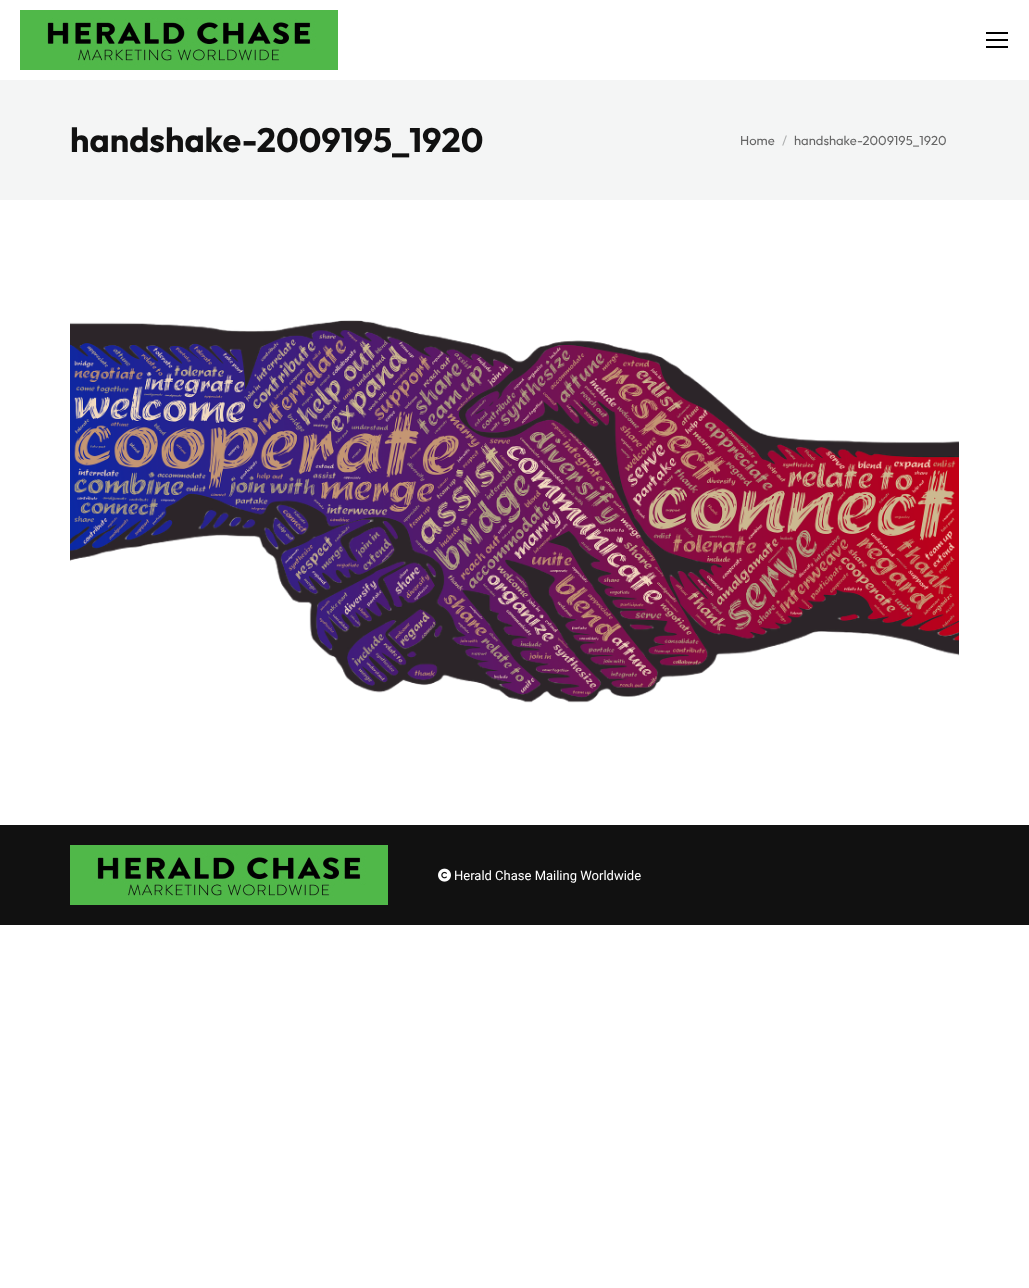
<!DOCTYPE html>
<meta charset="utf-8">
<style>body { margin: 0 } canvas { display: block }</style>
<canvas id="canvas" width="1029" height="1288"></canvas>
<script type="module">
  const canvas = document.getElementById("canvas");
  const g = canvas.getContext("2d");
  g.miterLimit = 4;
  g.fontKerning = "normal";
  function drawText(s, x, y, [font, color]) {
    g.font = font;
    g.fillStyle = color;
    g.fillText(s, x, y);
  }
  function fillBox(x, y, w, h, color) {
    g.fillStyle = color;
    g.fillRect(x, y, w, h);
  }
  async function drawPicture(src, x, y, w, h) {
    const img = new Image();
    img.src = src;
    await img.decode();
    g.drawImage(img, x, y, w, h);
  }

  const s1 = ["bold 34px Outfit", "#111111"];
  const s2 = ["13px Outfit", "#666666"];
  const s3 = ["13px Outfit", "#ADAEAE"];
  const s4 = ["13px Roboto", "#FFFFFF"];

  fillBox(0, 0, 1029, 1288, "#FFFFFF");
  await drawPicture("pic1.png", 20, 10, 318, 60);
  fillBox(986, 32, 22, 2, "#000000");
  fillBox(986, 39, 22, 2, "#000000");
  fillBox(986, 46, 22, 2, "#000000");
  fillBox(0, 80, 1029, 120, "#F4F5F5");
  drawText("handshake-2009195_1920", 70, 152, s1);
  drawText("Home", 740, 145, s2);
  drawText("/", 782, 145, s3);
  drawText("handshake-2009195_1920", 794, 145, s2);
  await drawPicture("pic2.png", 70, 320, 889, 383);
  fillBox(0, 825, 1029, 100, "#111111");
  await drawPicture("pic1.png", 70, 845, 318, 60);
  await drawPicture("pic3.png", 438, 868, 13, 14);
  drawText("Herald Chase Mailing Worldwide", 454, 880, s4);
</script>
